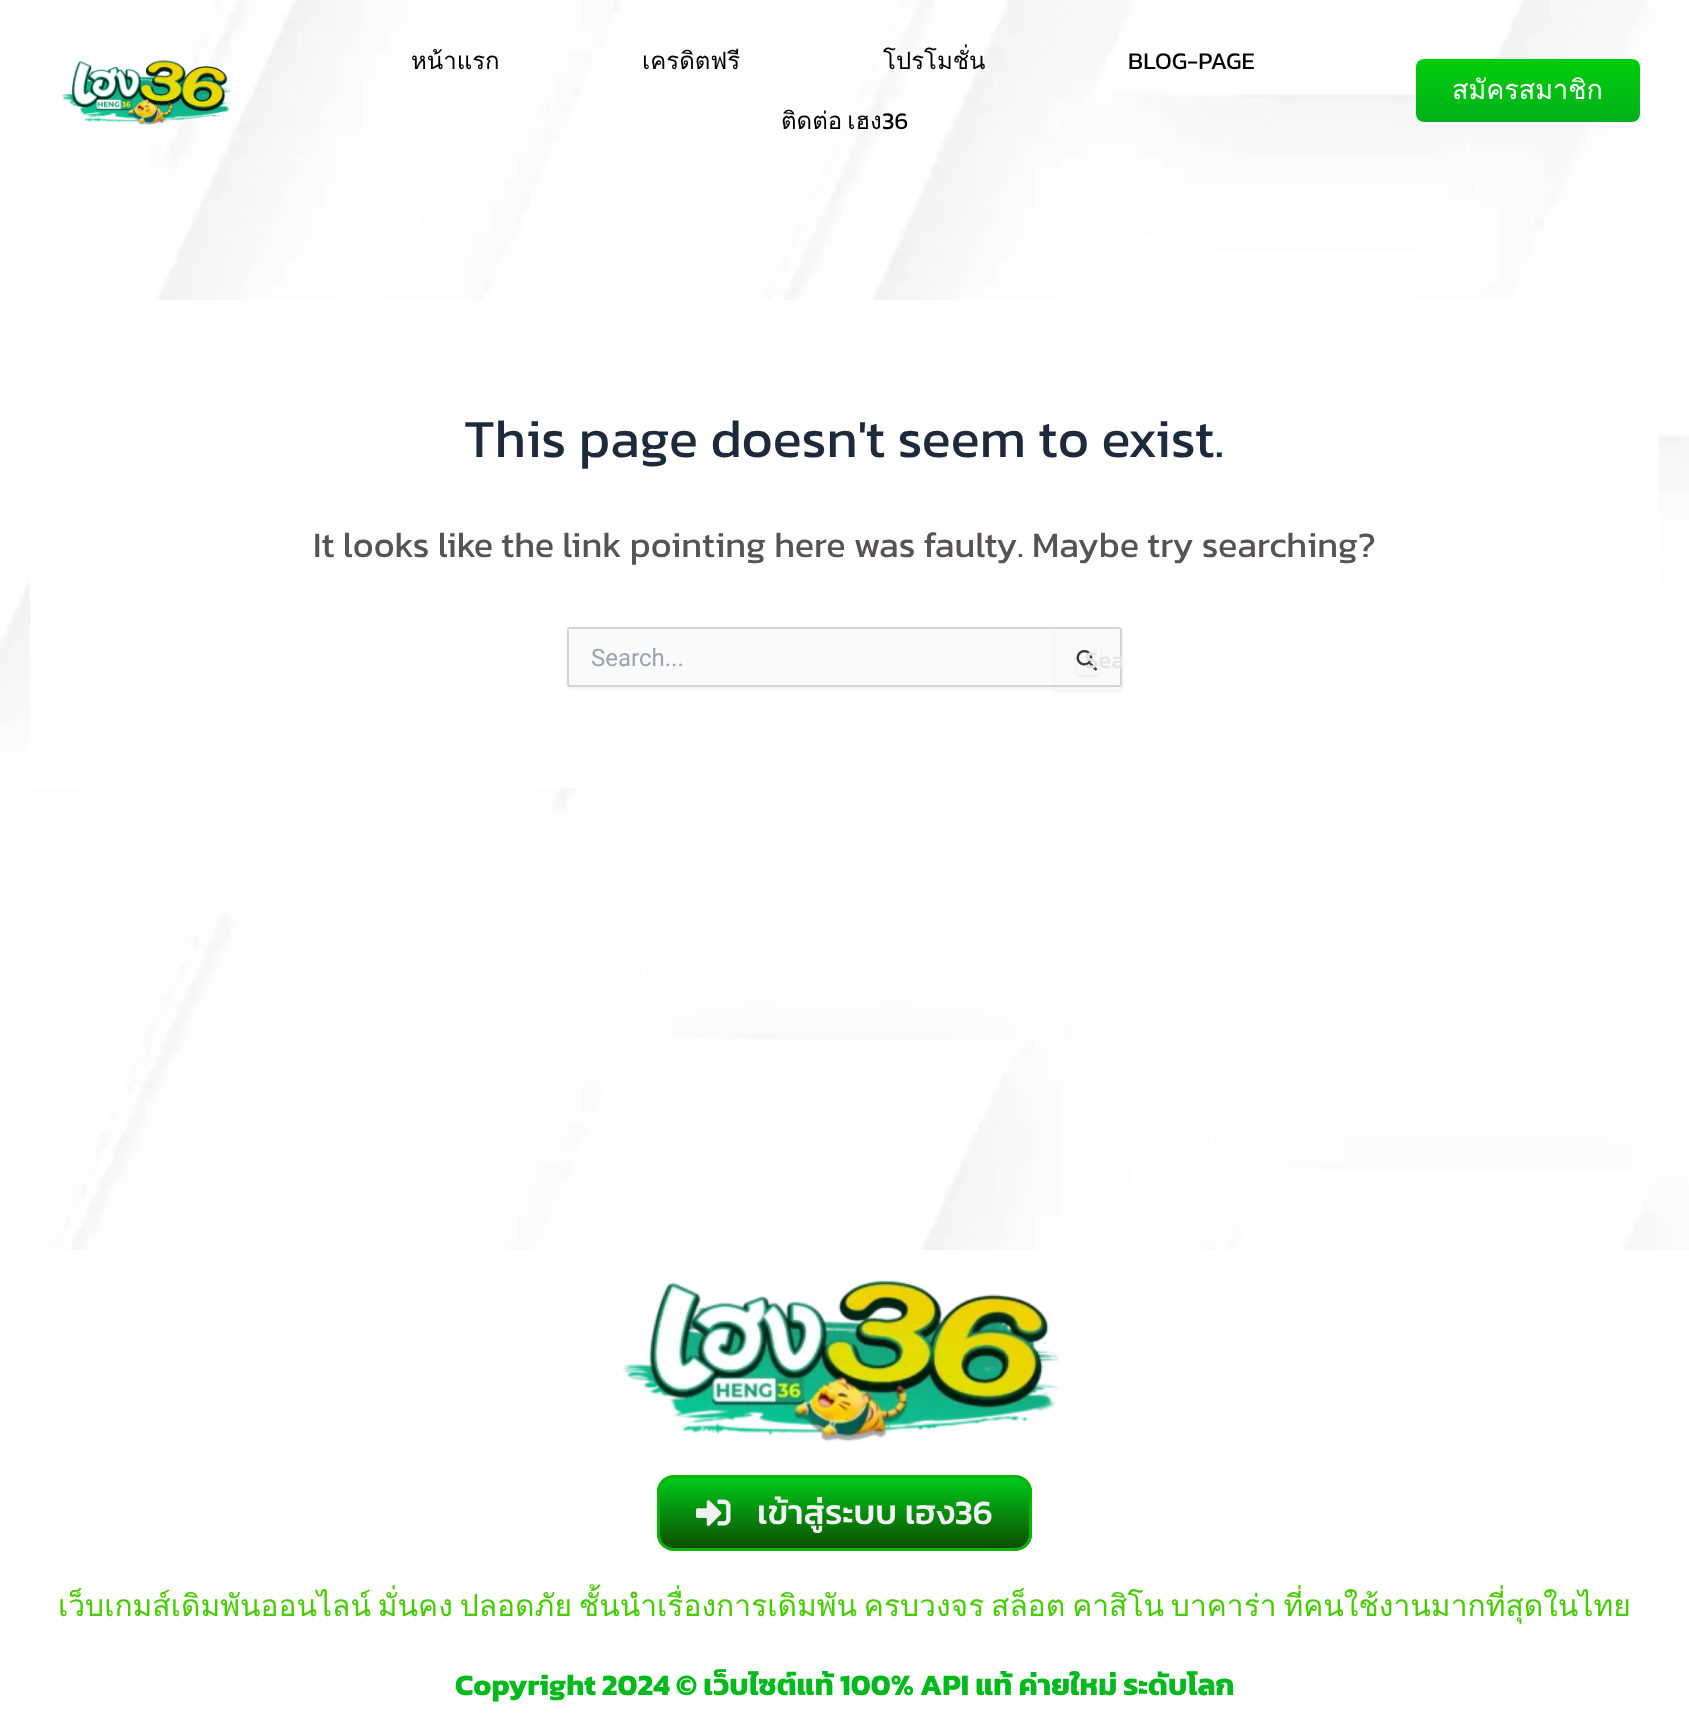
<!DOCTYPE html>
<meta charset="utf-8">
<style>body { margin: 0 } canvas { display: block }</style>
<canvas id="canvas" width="1689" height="1724"></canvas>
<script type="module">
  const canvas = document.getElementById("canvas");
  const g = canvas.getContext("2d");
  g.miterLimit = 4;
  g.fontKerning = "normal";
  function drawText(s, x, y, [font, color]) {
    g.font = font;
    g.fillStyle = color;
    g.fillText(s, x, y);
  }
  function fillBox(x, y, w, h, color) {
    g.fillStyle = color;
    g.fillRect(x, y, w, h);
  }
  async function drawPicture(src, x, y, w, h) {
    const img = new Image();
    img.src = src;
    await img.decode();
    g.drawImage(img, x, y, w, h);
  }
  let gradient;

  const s1 = ["24px Loma", "#000000"];
  const s2 = ["24px Kanit", "#000000"];
  const s3 = ["27px Loma", "#FFFFFF"];
  const s4 = ["54px Kanit", "#1E293B"];
  const s5 = ["36px Kanit", "#575353"];
  const s6 = ["24px Roboto", "#9CA3AF"];
  const s7 = ["500 24px Kanit", "#E5E5E6"];
  const s8 = ["500 34.5px Kanit", "#F1F1F1"];
  const s9 = ["30px Loma", "#46CC00"];
  const s10 = ["bold 30px Kanit", "#00B91C"];

  fillBox(0, 0, 1689, 1724, "#FFFFFF");
  await drawPicture("pic1.png", 0, 0, 1689, 1250);
  await drawPicture("pic2.png", 61, 60, 171, 65);
  drawText("หน้าแรก", 411, 69, s1);
  drawText("เครดิตฟรี", 642, 69, s1);
  drawText("โปรโมชั่น", 883, 69, s1);
  drawText("BLOG-PAGE", 1128, 69, s2);
  g.wordSpacing = "-3px";
  drawText("ติดต่อ เฮง", 781, 129, s1);
  g.wordSpacing = "0px";
  drawText("36", 882, 129, s2);
  gradient = g.createLinearGradient(1528, 58, 1528, 122);
  gradient.addColorStop(0, "#00CE0A");
  gradient.addColorStop(1, "#00B11B");
  g.fillStyle = gradient;
  g.beginPath();
  g.roundRect(1416, 59, 224, 63, 8);
  g.fill();
  drawText("สมัครสมาชิก", 1452, 99, s3);
  fillBox(30, 300, 1629, 488, "#FFFFFF");
  drawText("This page doesn't seem to exist.", 464, 457, s4);
  drawText("It looks like the link pointing here was faulty. Maybe try searching?", 313, 557, s5);
  g.fillStyle = "rgba(0, 0, 0, 0.05)";
  g.filter = "blur(1.5px)";
  g.beginPath();
  g.roundRect(567, 629, 555, 60, 3);
  g.fill();
  g.filter = "none";
  g.fillStyle = "#FAFAFA";
  g.beginPath();
  g.roundRect(568, 628, 553, 58, 2);
  g.fill();
  g.strokeStyle = "#D1D5DB";
  g.lineWidth = 2;
  g.stroke();
  drawText("Search...", 591, 666, s6);
  g.save();
  g.beginPath();
  g.moveTo(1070, 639);
  g.lineTo(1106, 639);
  g.lineTo(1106, 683);
  g.lineTo(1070, 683);
  g.closePath();
  g.moveTo(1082, 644);
  g.lineTo(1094, 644);
  g.bezierCurveTo(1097.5, 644, 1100, 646.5, 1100, 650);
  g.lineTo(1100, 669);
  g.bezierCurveTo(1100, 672.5, 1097.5, 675, 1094, 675);
  g.lineTo(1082, 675);
  g.bezierCurveTo(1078.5, 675, 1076, 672.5, 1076, 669);
  g.lineTo(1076, 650);
  g.bezierCurveTo(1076, 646.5, 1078.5, 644, 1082, 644);
  g.closePath();
  g.clip("evenodd");
  g.fillStyle = "rgba(0, 0, 0, 0.05)";
  g.filter = "blur(1.5px)";
  g.beginPath();
  g.roundRect(1076, 645, 24, 32, 6);
  g.fill();
  g.filter = "none";
  g.restore();
  await drawPicture("pic3.png", 1076, 650, 21, 21);
  g.save();
  g.beginPath();
  g.moveTo(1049, 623);
  g.lineTo(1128, 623);
  g.lineTo(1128, 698);
  g.lineTo(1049, 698);
  g.closePath();
  g.moveTo(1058, 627);
  g.lineTo(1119, 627);
  g.bezierCurveTo(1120.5, 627, 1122, 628.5, 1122, 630);
  g.lineTo(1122, 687);
  g.bezierCurveTo(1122, 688.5, 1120.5, 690, 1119, 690);
  g.lineTo(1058, 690);
  g.bezierCurveTo(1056.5, 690, 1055, 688.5, 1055, 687);
  g.lineTo(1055, 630);
  g.bezierCurveTo(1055, 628.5, 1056.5, 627, 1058, 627);
  g.closePath();
  g.clip("evenodd");
  g.fillStyle = "rgba(0, 0, 0, 0.05)";
  g.filter = "blur(1.5px)";
  g.beginPath();
  g.roundRect(1055, 629, 67, 63, 3);
  g.fill();
  g.filter = "none";
  g.restore();
  g.save();
  g.beginPath();
  g.roundRect(1055, 627, 67, 63, 3);
  g.clip();
  drawText("Sea", 1085, 668, s7);
  g.restore();
  await drawPicture("pic4.png", 622, 1280, 438, 162);
  g.save();
  g.beginPath();
  g.roundRect(657, 1475, 375, 76, 17);
  g.clip();
  gradient = g.createLinearGradient(845, 1478, 845, 1548);
  gradient.addColorStop(0, "#00CA1C");
  gradient.addColorStop(1, "#0D4E00");
  g.fillStyle = gradient;
  g.fillRect(657, 1478, 375, 70);
  g.restore();
  g.beginPath();
  g.roundRect(658.5, 1476.5, 372, 73, 15.5);
  g.strokeStyle = "#0AB400";
  g.lineWidth = 3;
  g.stroke();
  await drawPicture("pic5.png", 696, 1499, 35, 27);
  drawText("เข้าสู่ระบบ เฮง36", 757, 1524, s8);
  g.wordSpacing = "-3.25px";
  drawText("เว็บเกมส์เดิมพันออนไลน์ มั่นคง ปลอดภัย ชั้นนำเรื่องการเดิมพัน ครบวงจร สล็อต คาสิโน บาคาร่า ที่คนใช้งานมากที่สุดในไทย", 58, 1616, s9);
  g.wordSpacing = "0px";
  drawText("Copyright 2024 © เว็บไซต์แท้ 100% API แท้ ค่ายใหม่ ระดับโลก", 455, 1695, s10);
</script>
